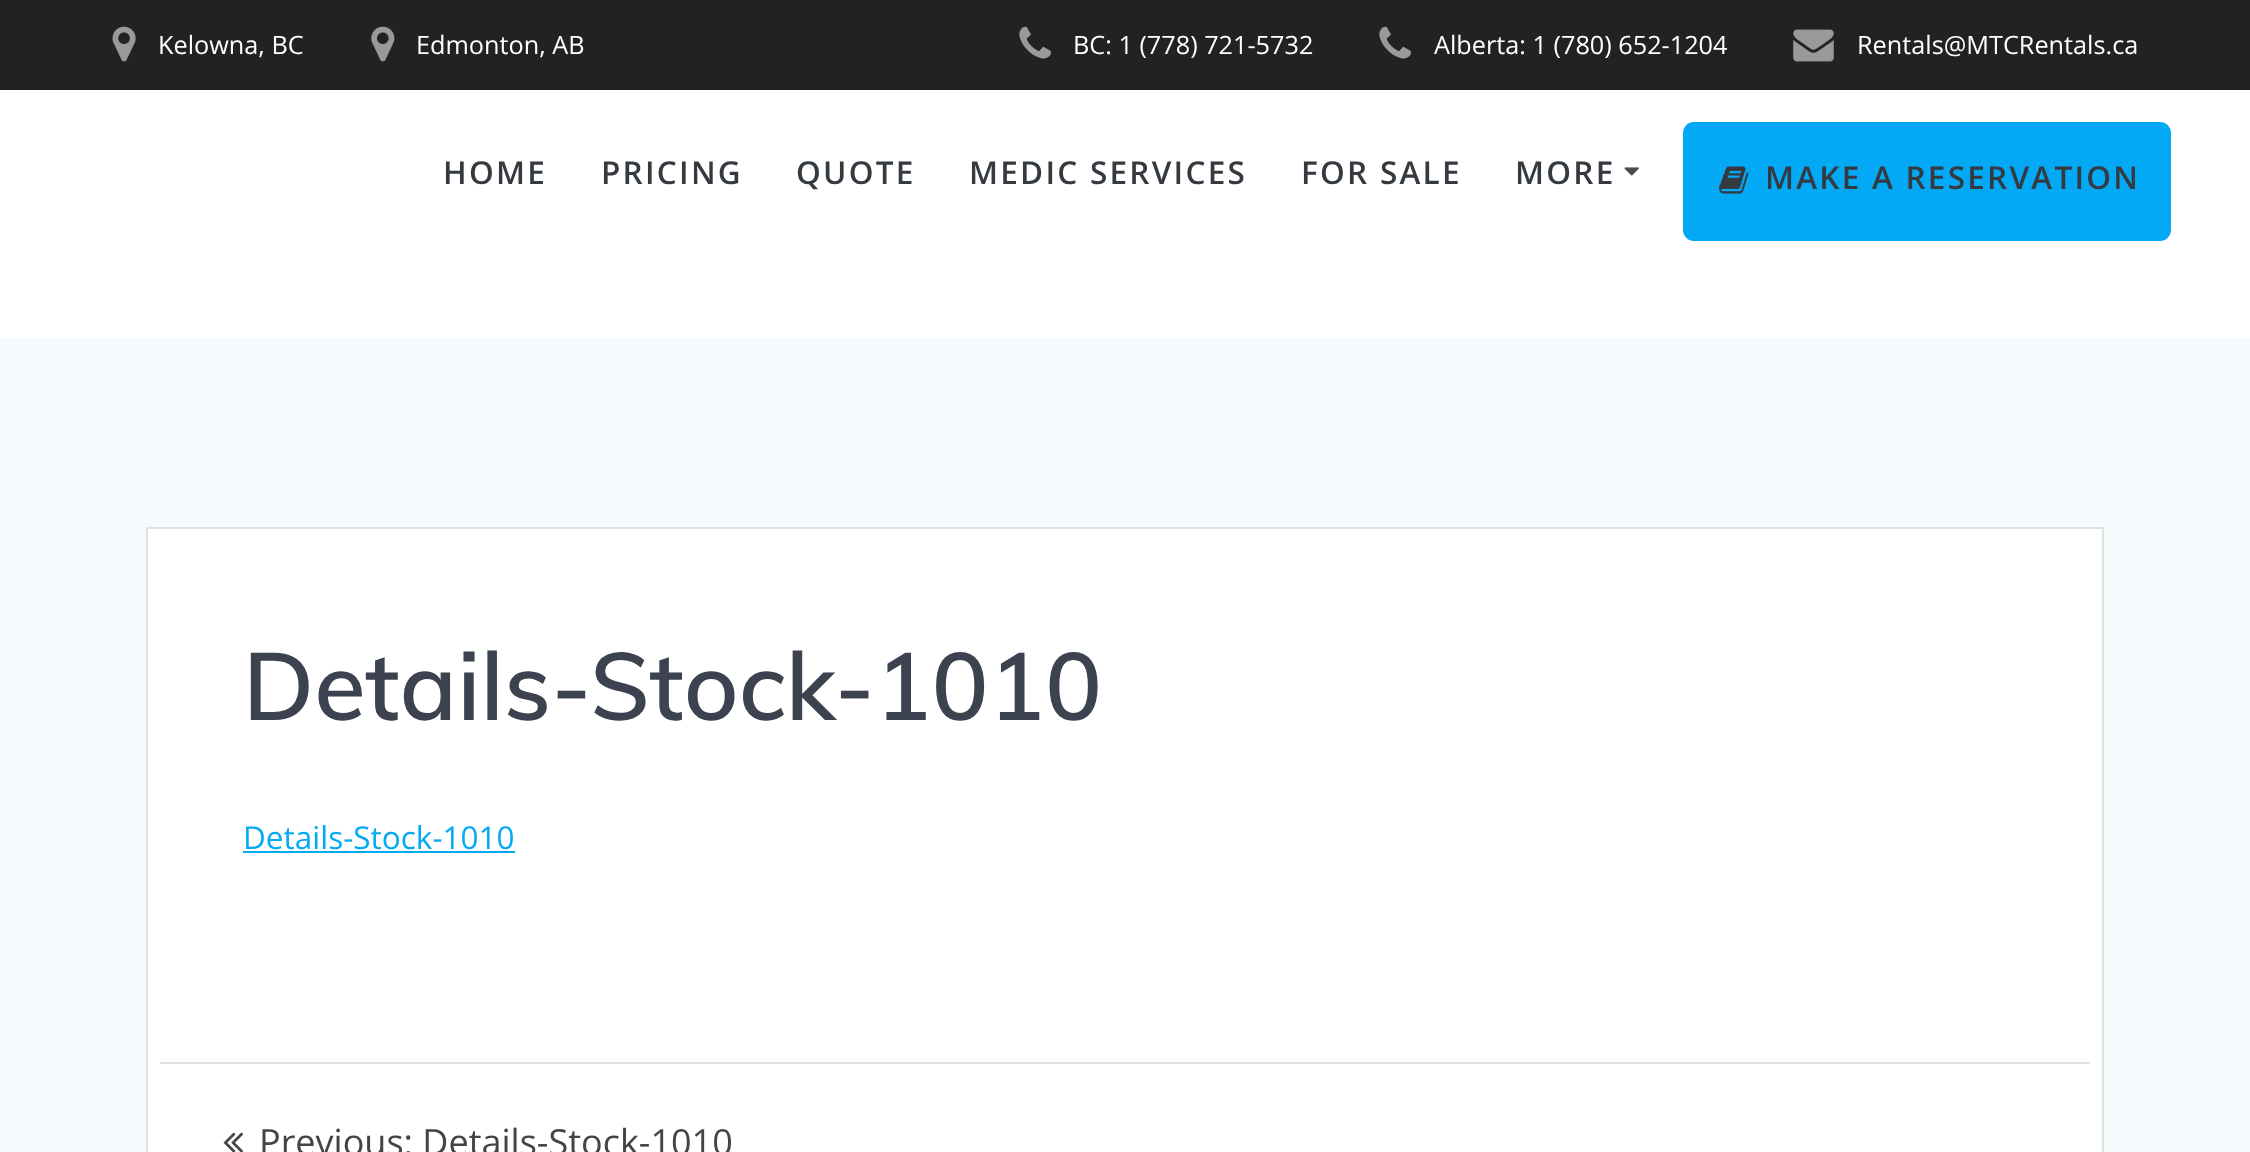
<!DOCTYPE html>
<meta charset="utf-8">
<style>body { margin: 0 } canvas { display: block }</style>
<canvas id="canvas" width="2250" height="1152"></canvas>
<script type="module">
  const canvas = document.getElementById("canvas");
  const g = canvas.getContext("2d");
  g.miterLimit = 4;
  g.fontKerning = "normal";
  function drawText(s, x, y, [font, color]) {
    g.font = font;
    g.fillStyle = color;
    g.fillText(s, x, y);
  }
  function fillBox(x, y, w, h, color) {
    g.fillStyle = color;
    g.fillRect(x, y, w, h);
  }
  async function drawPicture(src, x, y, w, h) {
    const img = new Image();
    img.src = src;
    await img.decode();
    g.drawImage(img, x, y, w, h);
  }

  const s1 = ["25.25px Open Sans", "#FFFFFF"];
  const s2 = ["600 31.5px Open Sans", "#343A40"];
  const s3 = ["600 94.5px Muli", "#3C424F"];
  const s4 = ["31.5px Open Sans", "#03A9F4"];
  const s5 = ["36px Open Sans", "#444444"];

  fillBox(0, 0, 2250, 1152, "#FFFFFF");
  fillBox(0, 0, 2250, 90, "#222222");
  await drawPicture("pic1.png", 112, 26, 24, 36);
  drawText("Kelowna, BC", 158, 54, s1);
  await drawPicture("pic2.png", 371, 26, 24, 36);
  drawText("Edmonton, AB", 416, 54, s1);
  await drawPicture("pic3.png", 1019, 26, 32, 33);
  drawText("BC: 1 (778) 721-5732", 1073, 54, s1);
  await drawPicture("pic3.png", 1379, 26, 32, 33);
  drawText("Alberta: 1 (780) 652-1204", 1434, 54, s1);
  await drawPicture("pic4.png", 1793, 29, 41, 33);
  drawText("Rentals@MTCRentals.ca", 1857, 54, s1);
  g.letterSpacing = "2.25px";
  drawText("HOME", 443, 184, s2);
  drawText("PRICING", 601, 184, s2);
  drawText("QUOTE", 796, 184, s2);
  drawText("MEDIC SERVICES", 969, 184, s2);
  drawText("FOR SALE", 1301, 184, s2);
  drawText("MORE", 1515, 184, s2);
  await drawPicture("pic5.png", 1624, 167, 15, 9);
  g.fillStyle = "#03A9F4";
  g.beginPath();
  g.roundRect(1685.5, 124.5, 483, 114, 8.5);
  g.fill();
  g.strokeStyle = "#03A9F4";
  g.lineWidth = 5;
  g.stroke();
  await drawPicture("pic6.png", 1719, 166, 30, 28);
  drawText("MAKE A RESERVATION", 1765, 189, s2);
  fillBox(0, 338, 2250, 814, "#F5FAFD");
  g.fillStyle = "#FFFFFF";
  g.beginPath();
  g.rect(147, 528, 1956, 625);
  g.fill();
  g.strokeStyle = "#E0E1E1";
  g.lineWidth = 2;
  g.stroke();
  g.letterSpacing = "0px";
  drawText("Details-Stock-1010", 243, 720, s3);
  drawText("Details-Stock-1010", 243, 849, s4);
  fillBox(243, 851, 272, 2, "#03A9F4");
  fillBox(160, 1062, 1930, 2, "#E0E1E1");
  await drawPicture("pic7.png", 223, 1132, 20, 20);
  drawText("Previous: Details-Stock-1010", 259, 1155, s5);
</script>
